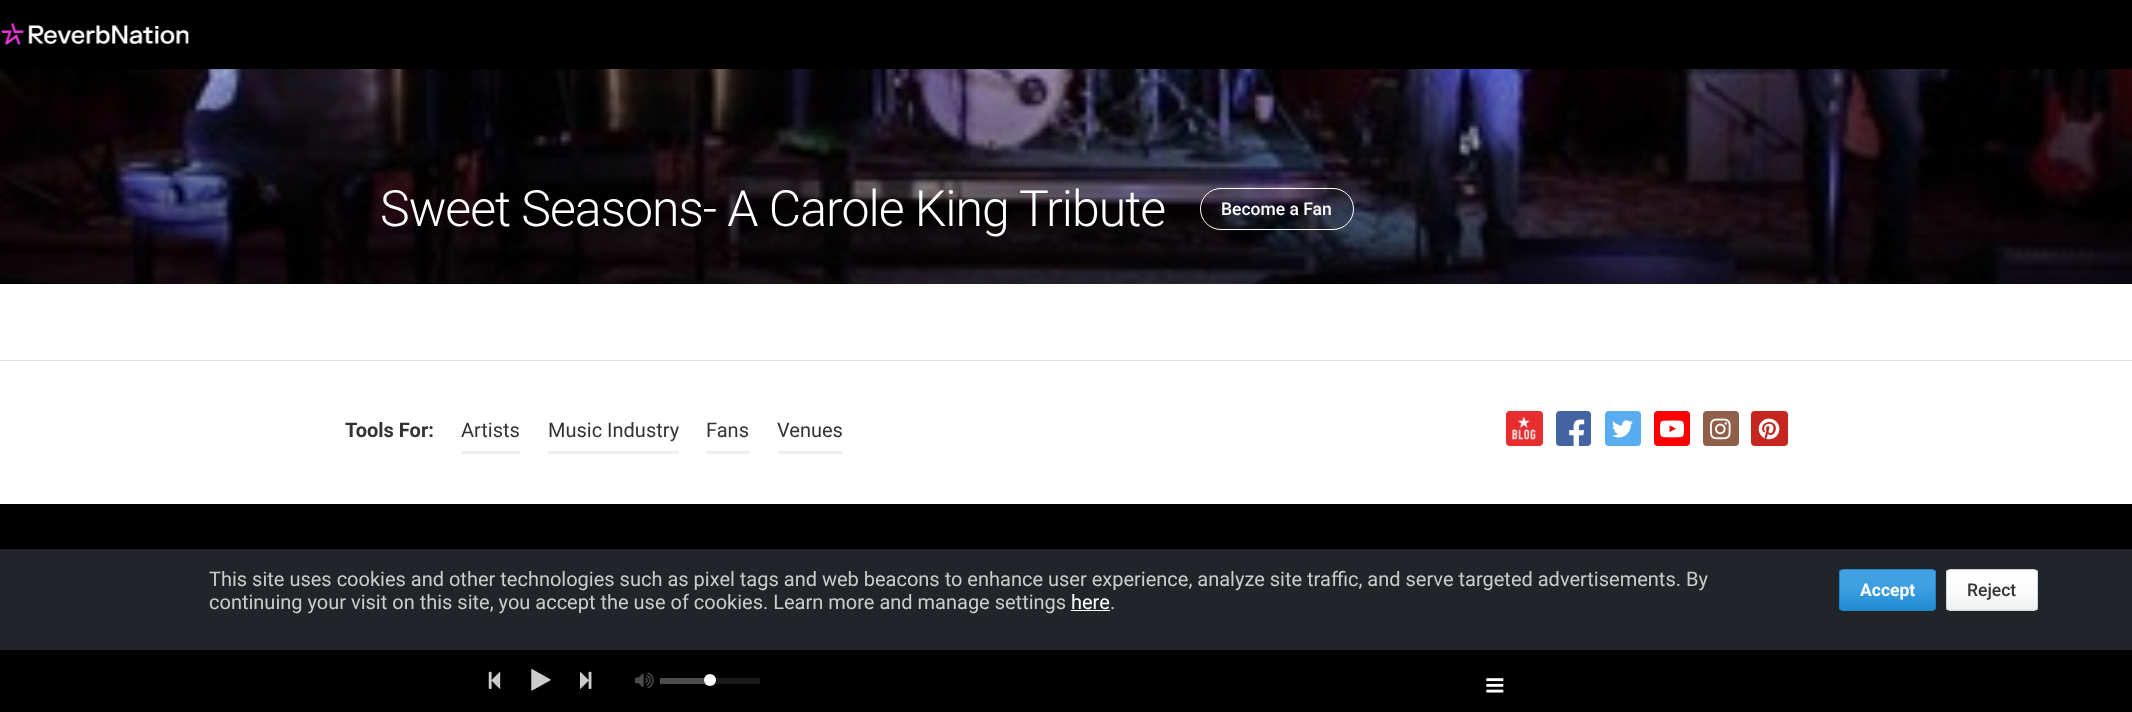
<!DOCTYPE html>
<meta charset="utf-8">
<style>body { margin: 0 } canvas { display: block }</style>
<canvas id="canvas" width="2132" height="712"></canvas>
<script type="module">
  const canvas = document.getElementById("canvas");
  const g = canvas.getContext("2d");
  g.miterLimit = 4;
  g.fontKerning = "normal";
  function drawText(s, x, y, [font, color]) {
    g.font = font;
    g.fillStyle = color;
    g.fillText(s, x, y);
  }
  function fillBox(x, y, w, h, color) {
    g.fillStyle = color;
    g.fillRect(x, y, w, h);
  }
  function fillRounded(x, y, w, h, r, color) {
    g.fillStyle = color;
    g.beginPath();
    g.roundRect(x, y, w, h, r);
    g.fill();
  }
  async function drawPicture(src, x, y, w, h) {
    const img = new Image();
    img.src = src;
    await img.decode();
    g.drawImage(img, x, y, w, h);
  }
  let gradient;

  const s1 = ["300 50px Roboto", "#FFFFFF"];
  const s2 = ["500 17.5px Roboto", "#FFFFFF"];
  const s3 = ["bold 20px Roboto", "#333333"];
  const s4 = ["20px Roboto", "#333333"];
  const s5 = ["20px Roboto", "#CCCCCC"];
  const s6 = ["20px Roboto", "#FFFFFF"];
  const s7 = ["bold 17.5px Roboto", "#FFFFFF"];
  const s8 = ["500 17.5px Roboto", "#333333"];

  fillBox(0, 0, 2132, 712, "#FFFFFF");
  fillBox(0, 0, 2132, 69, "#000000");
  await drawPicture("pic1.png", 1, 22, 188, 23);
  await drawPicture("pic2.png", 0, 69, 2132, 215);
  g.letterSpacing = "-1px";
  drawText("Sweet Seasons- A Carole King Tribute", 380, 226, s1);
  g.fillStyle = "rgba(0, 0, 0, 0.1)";
  g.beginPath();
  g.roundRect(1200.5, 188.5, 153, 41, 20.5);
  g.fill();
  g.strokeStyle = "#FFFFFF";
  g.stroke();
  g.letterSpacing = "0px";
  drawText("Become a Fan", 1221, 215, s2);
  g.fillStyle = "#DFE4E6";
  g.beginPath();
  g.moveTo(0, 360);
  g.lineTo(0, 361);
  g.lineTo(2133, 361);
  g.lineTo(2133, 286);
  g.lineTo(2132, 286);
  g.lineTo(2132, 360);
  g.closePath();
  g.fill();
  drawText("Tools For:", 345, 437, s3);
  fillBox(461, 451, 59, 3, "#EDF0F1");
  drawText("Artists", 461, 437, s4);
  fillBox(548, 451, 131, 3, "#EDF0F1");
  drawText("Music Industry", 548, 437, s4);
  fillBox(706, 451, 44, 3, "#EDF0F1");
  drawText("Fans", 706, 437, s4);
  fillBox(778, 451, 65, 3, "#EDF0F1");
  drawText("Venues", 777, 437, s4);
  fillRounded(1506, 411, 37, 35, 4, "#E72E2E");
  await drawPicture("pic3.png", 1512, 416, 24, 24);
  fillRounded(1556, 411, 35, 35, 4, "#4463A1");
  await drawPicture("pic4.png", 1569, 419, 16, 27);
  fillRounded(1605, 411, 36, 35, 4, "#58ADF0");
  await drawPicture("pic5.png", 1612, 420, 21, 18);
  fillRounded(1654, 411, 36, 35, 4, "#FF0000");
  await drawPicture("pic6.png", 1660, 420, 24, 18);
  fillRounded(1703, 411, 36, 35, 4, "#905F4A");
  await drawPicture("pic7.png", 1710, 418, 21, 22);
  fillRounded(1751, 411, 37, 35, 4, "#C5261F");
  await drawPicture("pic8.png", 1758, 418, 22, 22);
  fillBox(0, 504, 2132, 45, "#000000");
  fillBox(0, 549, 2132, 101, "#212529");
  drawText("This site uses cookies and other technologies such as pixel tags and web beacons to enhance user experience, analyze site traffic, and serve targeted advertisements. By", 209, 586, s5);
  drawText("continuing your visit on this site, you accept the use of cookies. Learn more and manage settings", 209, 609, s5);
  drawText("here", 1071, 609, s6);
  fillBox(1071, 610, 39, 1, "#FFFFFF");
  drawText(".", 1110, 609, s5);
  g.save();
  g.beginPath();
  g.roundRect(1839, 569, 97, 42, 4);
  g.clip();
  gradient = g.createLinearGradient(1888, 570, 1888, 610);
  gradient.addColorStop(0, "#43A2E1");
  gradient.addColorStop(0.5, "#3A9EE0");
  gradient.addColorStop(1, "#218BD0");
  g.fillStyle = gradient;
  g.fillRect(1839, 570, 97, 40);
  g.restore();
  g.beginPath();
  g.roundRect(1839.5, 569.5, 96, 41, 3.5);
  g.strokeStyle = "#1F85C8";
  g.stroke();
  drawText("Accept", 1860, 596, s7);
  g.save();
  g.beginPath();
  g.roundRect(1946, 569, 92, 42, 4);
  g.clip();
  gradient = g.createLinearGradient(1992, 570, 1992, 610);
  gradient.addColorStop(0, "#FFFFFF");
  gradient.addColorStop(0.5, "#FCFCFC");
  gradient.addColorStop(1, "#EDF1F2");
  g.fillStyle = gradient;
  g.fillRect(1946, 570, 92, 40);
  g.restore();
  g.beginPath();
  g.roundRect(1946.5, 569.5, 91, 41, 3.5);
  g.strokeStyle = "#D0D8DB";
  g.stroke();
  drawText("Reject", 1967, 596, s8);
  fillBox(0, 650, 2132, 62, "#000000");
  await drawPicture("pic9.png", 488, 671, 13, 18);
  await drawPicture("pic10.png", 531, 669, 20, 22);
  await drawPicture("pic11.png", 580, 671, 12, 18);
  fillBox(714, 678, 46, 6, "#1A1A1A");
  await drawPicture("pic12.png", 635, 672, 19, 17);
  fillBox(660, 678, 50, 6, "#4D4D4D");
  g.fillStyle = "#FFFFFF";
  g.beginPath();
  g.arc(710, 680, 6, 0, Math.PI * 2);
  g.fill();
  await drawPicture("pic13.png", 1486, 678, 18, 15);
</script>
